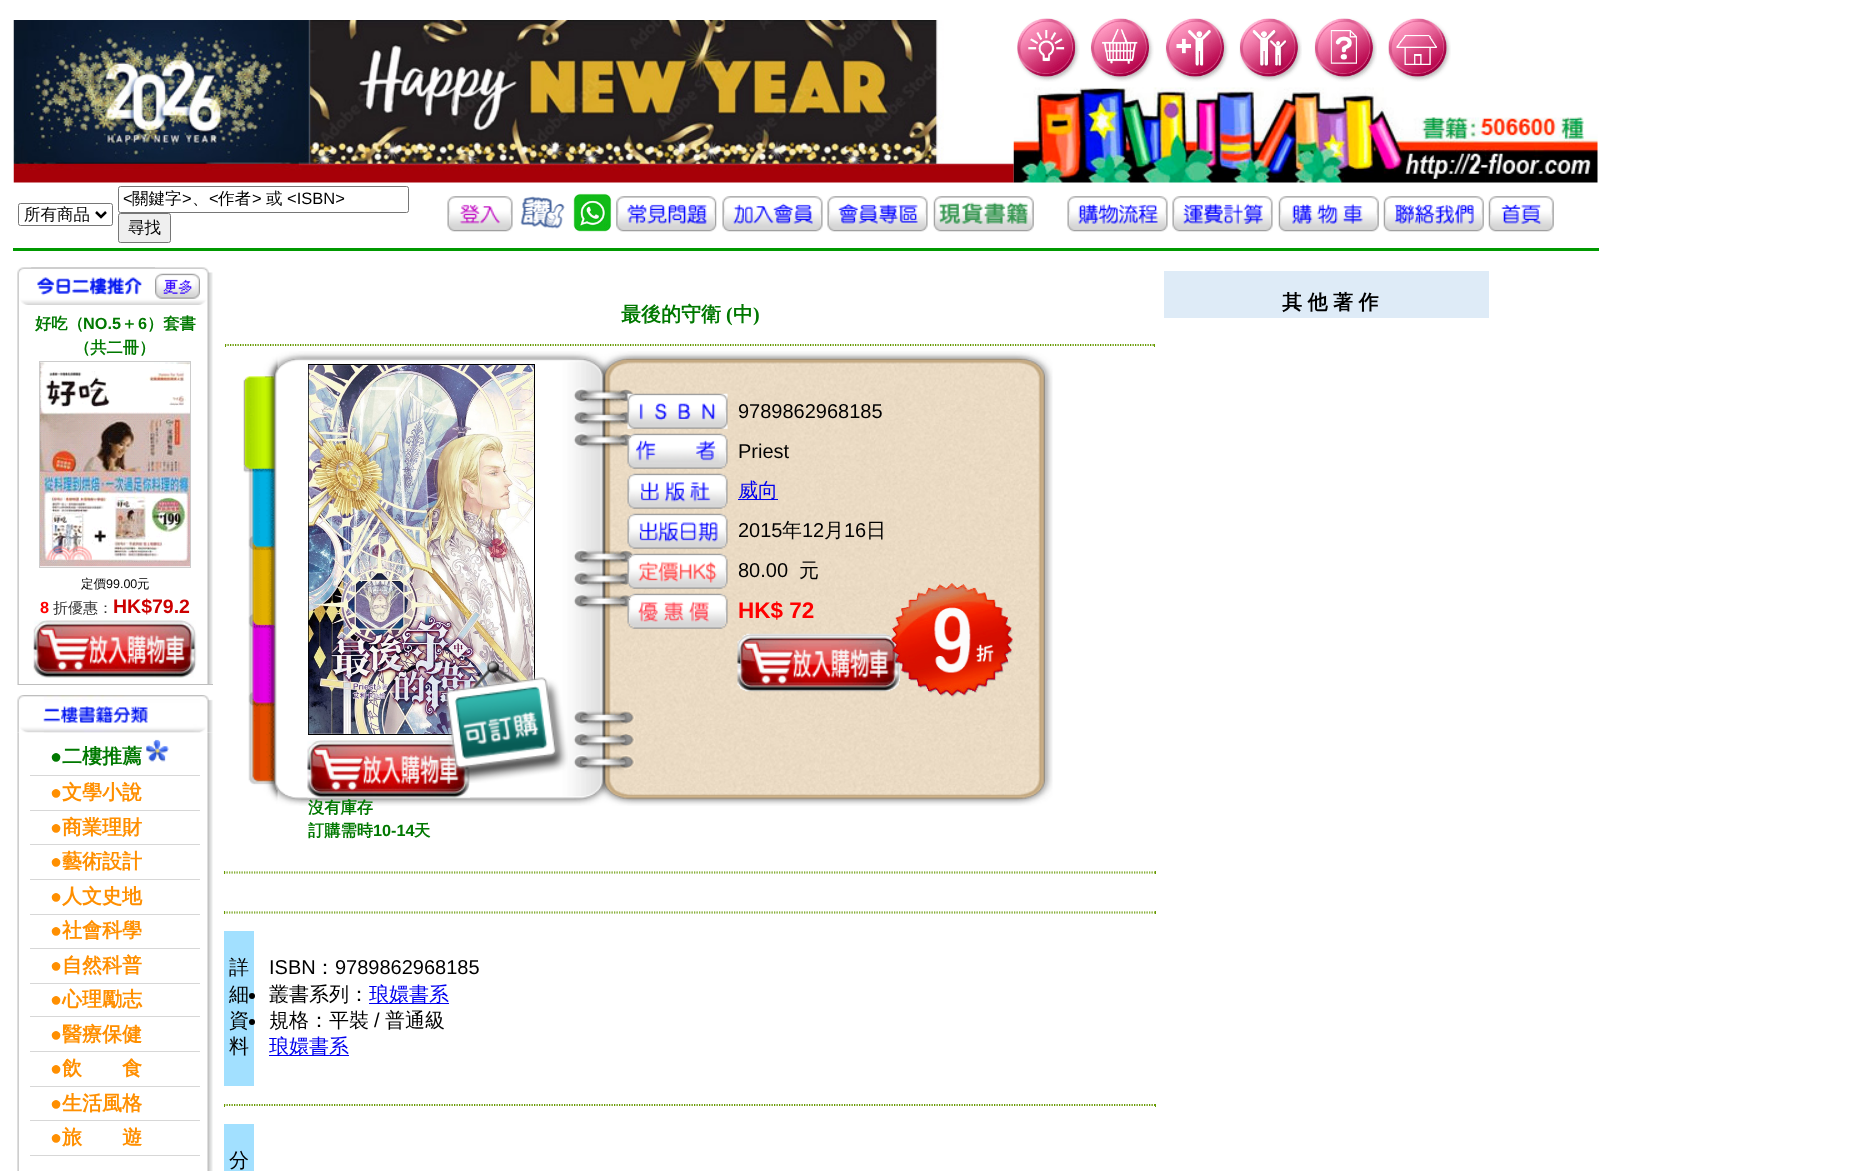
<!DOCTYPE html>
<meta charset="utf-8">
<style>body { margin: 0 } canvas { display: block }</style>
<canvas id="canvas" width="1863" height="1171"></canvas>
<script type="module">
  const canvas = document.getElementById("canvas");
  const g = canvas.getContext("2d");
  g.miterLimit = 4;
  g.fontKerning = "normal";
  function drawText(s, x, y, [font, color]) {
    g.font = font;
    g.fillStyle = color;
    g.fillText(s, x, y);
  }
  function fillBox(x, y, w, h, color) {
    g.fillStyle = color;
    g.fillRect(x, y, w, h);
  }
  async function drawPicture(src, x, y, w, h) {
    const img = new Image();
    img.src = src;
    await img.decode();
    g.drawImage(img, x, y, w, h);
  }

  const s1 = ["500 16.5px WenQuanYi Zen Hei", "#000000"];
  const s2 = ["16.5px Liberation Sans", "#000000"];
  const s3 = ["bold 16.25px WenQuanYi Zen Hei", "#007800"];
  const s4 = ["bold 16.25px Liberation Sans", "#007800"];
  const s5 = ["500 12.5px WenQuanYi Zen Hei", "#000000"];
  const s6 = ["12.5px Liberation Sans", "#000000"];
  const s7 = ["bold 16.25px Liberation Sans", "#FF0000"];
  const s8 = ["500 15px WenQuanYi Zen Hei", "#333333"];
  const s9 = ["bold 19.5px Liberation Sans", "#CC0000"];
  const s10 = ["bold 20px Liberation Sans", "#007800"];
  const s11 = ["bold 20px WenQuanYi Zen Hei", "#007800"];
  const s12 = ["bold 20px Liberation Sans", "#FF8F00"];
  const s13 = ["bold 20px WenQuanYi Zen Hei", "#FF8F00"];
  const s14 = ["bold 20px Liberation Serif", "#007800"];
  const s15 = ["20px Liberation Sans", "#000000"];
  const s16 = ["500 20px WenQuanYi Zen Hei", "#0000EE"];
  const s17 = ["500 20px WenQuanYi Zen Hei", "#000000"];
  const s18 = ["bold 22.5px Liberation Sans", "#FF0000"];
  const s19 = ["bold 20px WenQuanYi Zen Hei", "#000000"];

  fillBox(0, 0, 1863, 1171, "#FFFFFF");
  await drawPicture("pic1.png", 243, 351, 810, 455);
  fillBox(13, 248, 1586, 3, "#009900");
  await drawPicture("pic2.png", 13, 20, 1001, 163);
  await drawPicture("pic3.png", 1017, 18, 63, 64);
  await drawPicture("pic4.png", 1090, 18, 64, 64);
  await drawPicture("pic5.png", 1165, 18, 64, 64);
  await drawPicture("pic6.png", 1239, 18, 63, 64);
  await drawPicture("pic7.png", 1314, 18, 63, 64);
  await drawPicture("pic8.png", 1388, 18, 63, 64);
  await drawPicture("pic9.png", 1013, 87, 585, 96);
  g.beginPath();
  g.roundRect(18.5, 203.5, 94, 22, 2);
  g.strokeStyle = "#767676";
  g.stroke();
  g.beginPath();
  g.moveTo(96, 212);
  g.lineTo(101, 217);
  g.lineTo(106, 212);
  g.strokeStyle = "#000000";
  g.lineWidth = 2.5;
  g.stroke();
  drawText("所有商品", 24, 220, s1);
  g.beginPath();
  g.roundRect(118.5, 186.5, 290, 26, 2);
  g.strokeStyle = "#767676";
  g.lineWidth = 1;
  g.stroke();
  drawText("<", 123, 204, s2);
  drawText("關鍵字", 132, 204, s1);
  drawText(">", 182, 204, s2);
  drawText("<", 209, 204, s2);
  drawText("作者", 218, 204, s1);
  drawText(">", 252, 204, s2);
  drawText("或", 266, 204, s1);
  drawText("<ISBN>", 287, 204, s2);
  drawText("、", 192, 204, s1);
  g.fillStyle = "#EFEFEF";
  g.beginPath();
  g.roundRect(118.5, 213.5, 52, 29, 2);
  g.fill();
  g.stroke();
  drawText("尋找", 128, 233, s1);
  await drawPicture("pic10.png", 447, 196, 66, 36);
  await drawPicture("pic11.png", 520, 196, 45, 33);
  await drawPicture("pic12.png", 573, 193, 39, 39);
  await drawPicture("pic13.png", 616, 196, 101, 36);
  await drawPicture("pic14.png", 722, 196, 101, 36);
  await drawPicture("pic15.png", 827, 196, 101, 36);
  await drawPicture("pic16.png", 933, 196, 101, 36);
  await drawPicture("pic17.png", 1067, 196, 101, 36);
  await drawPicture("pic18.png", 1172, 196, 101, 36);
  await drawPicture("pic19.png", 1278, 196, 101, 36);
  await drawPicture("pic20.png", 1383, 196, 101, 36);
  await drawPicture("pic21.png", 1488, 196, 66, 36);
  await drawPicture("pic22.png", 17, 267, 196, 38);
  await drawPicture("pic23.png", 31, 267, 124, 29);
  await drawPicture("pic24.png", 155, 273, 45, 26);
  await drawPicture("pic25.png", 17, 305, 196, 380);
  fillBox(18, 684, 195, 1, "#BEBEBE");
  drawText("好吃（", 35, 329, s3);
  drawText("NO.5", 83, 329, s4);
  drawText("＋", 121, 329, s3);
  drawText("6", 138, 329, s4);
  drawText("）套書", 147, 329, s3);
  drawText("（共二冊）", 74, 353, s3);
  g.strokeStyle = "#CCCCCC";
  g.strokeRect(39.5, 361.5, 151, 206);
  await drawPicture("pic26.png", 40, 362, 150, 205);
  drawText("定價", 81, 588, s5);
  drawText("99.00", 106, 588, s6);
  drawText("元", 137, 588, s5);
  drawText("8", 40, 613, s7);
  drawText("折優惠：", 53, 613, s8);
  drawText("HK$79.2", 113, 613, s9);
  await drawPicture("pic27.png", 33, 620, 164, 58);
  await drawPicture("pic28.png", 17, 695, 196, 38);
  await drawPicture("pic29.png", 43, 695, 157, 38);
  await drawPicture("pic30.png", 17, 732, 196, 439);
  fillBox(30, 775, 170, 1, "#D7D7D7");
  drawText("●", 50, 763, s10);
  drawText("二樓推薦", 62, 763, s11);
  await drawPicture("pic31.png", 146, 739, 23, 23);
  fillBox(30, 810, 170, 1, "#D7D7D7");
  drawText("●", 50, 799, s12);
  drawText("文學小說", 62, 799, s13);
  fillBox(30, 844, 170, 1, "#D7D7D7");
  drawText("●", 50, 834, s12);
  drawText("商業理財", 62, 834, s13);
  fillBox(30, 879, 170, 1, "#D7D7D7");
  drawText("●", 50, 868, s12);
  drawText("藝術設計", 62, 868, s13);
  fillBox(30, 914, 170, 1, "#D7D7D7");
  drawText("●", 50, 903, s12);
  drawText("人文史地", 62, 903, s13);
  fillBox(30, 948, 170, 1, "#D7D7D7");
  drawText("●", 50, 937, s12);
  drawText("社會科學", 62, 937, s13);
  fillBox(30, 983, 170, 1, "#D7D7D7");
  drawText("●", 50, 972, s12);
  drawText("自然科普", 62, 972, s13);
  fillBox(30, 1016, 170, 1, "#D7D7D7");
  drawText("●", 50, 1006, s12);
  drawText("心理勵志", 62, 1006, s13);
  fillBox(30, 1051, 170, 1, "#D7D7D7");
  drawText("●", 50, 1041, s12);
  drawText("醫療保健", 62, 1041, s13);
  fillBox(30, 1086, 170, 1, "#D7D7D7");
  drawText("●", 50, 1075, s12);
  drawText("飲　　食", 62, 1075, s13);
  fillBox(30, 1120, 170, 1, "#D7D7D7");
  drawText("●", 50, 1110, s12);
  drawText("生活風格", 62, 1110, s13);
  fillBox(30, 1155, 170, 1, "#D7D7D7");
  drawText("●", 50, 1144, s12);
  drawText("旅　　遊", 62, 1144, s13);
  drawText("最後的守衛", 621, 321, s11);
  drawText("(", 726, 321, s14);
  drawText("中", 733, 321, s11);
  drawText(")", 753, 321, s14);
  g.beginPath();
  g.moveTo(225, 344.5);
  g.lineTo(1155, 344.5);
  g.strokeStyle = "#669900";
  g.lineWidth = 1.2;
  g.setLineDash([1.25, 1.25]);
  g.stroke();
  fillBox(1154, 344, 1, 3, "#669900");
  g.beginPath();
  g.moveTo(225, 345.5);
  g.lineTo(1155, 345.5);
  g.stroke();
  fillBox(225, 344, 1, 3, "#669900");
  await drawPicture("pic32.png", 627, 393, 101, 36);
  drawText("9789862968185", 738, 418, s15);
  await drawPicture("pic33.png", 627, 433, 101, 36);
  drawText("Priest", 738, 458, s15);
  await drawPicture("pic34.png", 627, 473, 101, 36);
  fillBox(738, 499, 40, 1, "#0000EE");
  drawText("威向", 738, 497, s16);
  await drawPicture("pic35.png", 627, 513, 101, 36);
  drawText("2015", 738, 537, s15);
  drawText("年", 782, 537, s17);
  drawText("12", 802, 537, s15);
  drawText("月", 824, 537, s17);
  drawText("16", 844, 537, s15);
  drawText("日", 866, 537, s17);
  await drawPicture("pic36.png", 627, 553, 101, 36);
  drawText("80.00", 738, 577, s15);
  drawText("元", 799, 577, s17);
  await drawPicture("pic37.png", 627, 593, 101, 36);
  drawText("HK$ 72", 738, 618, s18);
  await drawPicture("pic38.png", 737, 633, 163, 59);
  g.strokeStyle = "#000000";
  g.lineWidth = 1;
  g.setLineDash([]);
  g.strokeRect(308.5, 364.5, 226, 370);
  await drawPicture("pic39.png", 308, 365, 226, 369);
  await drawPicture("pic40.png", 307, 740, 163, 58);
  drawText("沒有庫存", 308, 813, s3);
  drawText("訂購需時", 308, 836, s3);
  drawText("10-14", 373, 836, s4);
  drawText("天", 414, 836, s3);
  g.beginPath();
  g.moveTo(224, 872);
  g.lineTo(1156, 872);
  g.strokeStyle = "#669900";
  g.lineWidth = 1.2;
  g.setLineDash([1.25, 1.25]);
  g.stroke();
  fillBox(1155, 871, 1, 3, "#669900");
  g.beginPath();
  g.moveTo(224, 873);
  g.lineTo(1156, 873);
  g.stroke();
  fillBox(224, 871, 1, 3, "#669900");
  g.beginPath();
  g.moveTo(224, 912);
  g.lineTo(1156, 912);
  g.stroke();
  fillBox(1155, 911, 1, 3, "#669900");
  g.beginPath();
  g.moveTo(224, 913);
  g.lineTo(1156, 913);
  g.stroke();
  fillBox(224, 911, 1, 3, "#669900");
  fillBox(224, 931, 30, 155, "#A2E0FF");
  drawText("詳", 229, 974, s17);
  drawText("細", 229, 1001, s17);
  drawText("資", 229, 1027, s17);
  drawText("料", 229, 1053, s17);
  drawText("ISBN", 269, 974, s15);
  drawText("：", 315, 974, s17);
  drawText("9789862968185", 335, 974, s15);
  g.beginPath();
  g.arc(252, 996, 3, 0, Math.PI * 2);
  g.fill();
  drawText("叢書系列：", 269, 1001, s17);
  fillBox(369, 1003, 80, 1, "#0000EE");
  drawText("琅嬛書系", 369, 1001, s16);
  g.fillStyle = "#000000";
  g.beginPath();
  g.arc(252, 1022, 3, 0, Math.PI * 2);
  g.fill();
  drawText("規格：平裝", 269, 1027, s17);
  drawText("/", 374, 1027, s15);
  drawText("普通級", 385, 1027, s17);
  fillBox(269, 1055, 80, 1, "#0000EE");
  drawText("琅嬛書系", 269, 1053, s16);
  g.beginPath();
  g.moveTo(224, 1104.5);
  g.lineTo(1156, 1104.5);
  g.stroke();
  fillBox(1155, 1104, 1, 3, "#669900");
  g.beginPath();
  g.moveTo(224, 1105.5);
  g.lineTo(1156, 1105.5);
  g.stroke();
  fillBox(224, 1104, 1, 3, "#669900");
  fillBox(224, 1124, 30, 47, "#A2E0FF");
  drawText("分", 229, 1167, s17);
  fillBox(1164, 271, 325, 47, "#DEEBF7");
  g.wordSpacing = "-0.5px";
  drawText("其 他 著 作", 1282, 309, s19);
  await drawPicture("pic41.png", 891, 583, 123, 115);
  await drawPicture("pic42.png", 442, 657, 126, 126);
</script>
